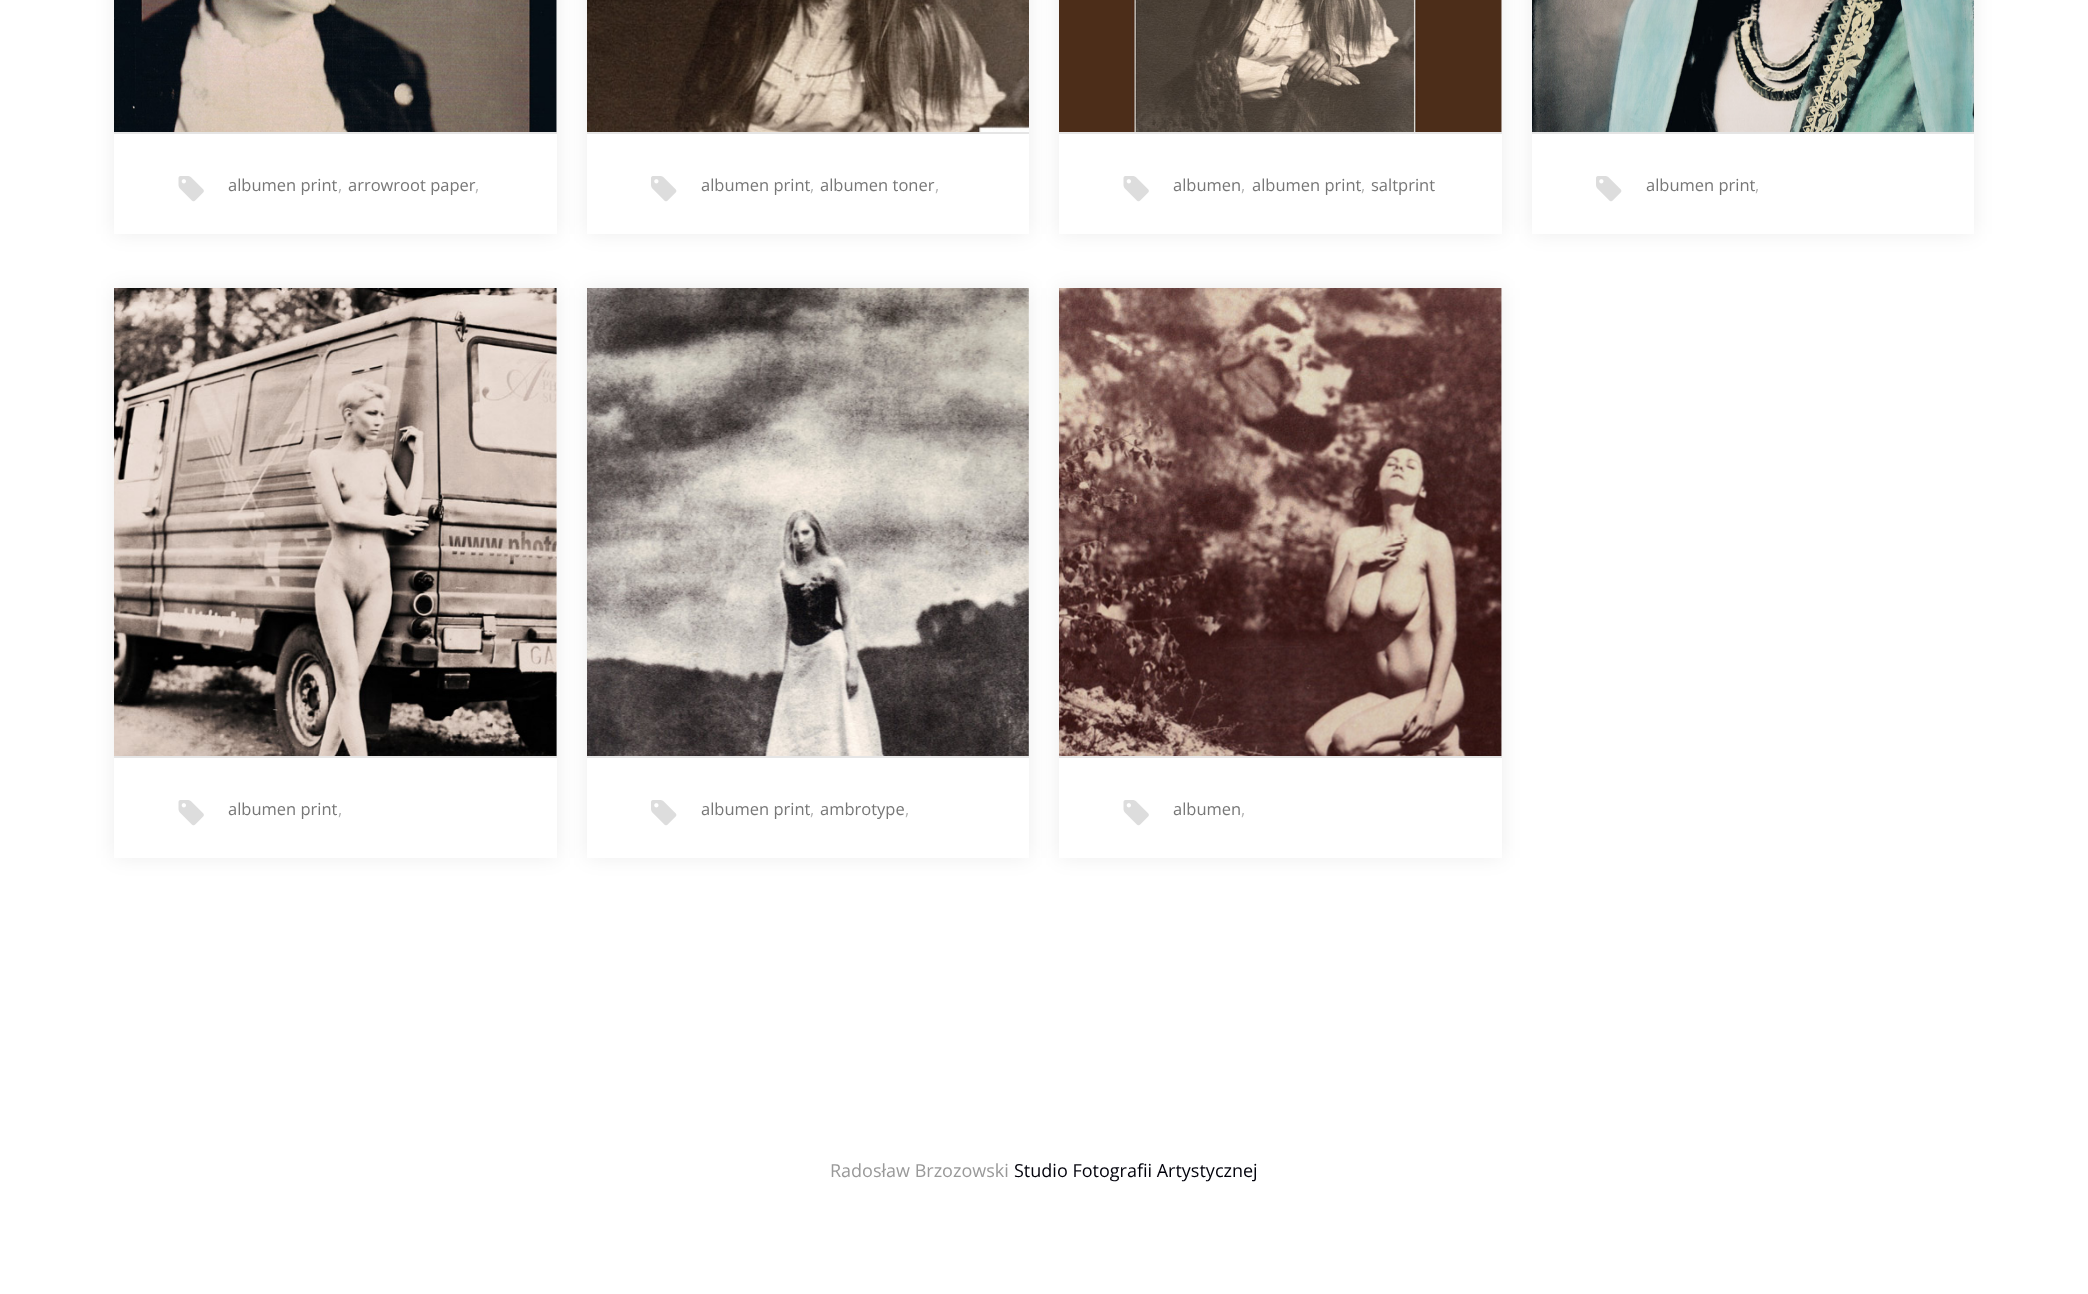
<!DOCTYPE html>
<meta charset="utf-8">
<style>body { margin: 0 } canvas { display: block }</style>
<canvas id="canvas" width="2088" height="1294"></canvas>
<script type="module">
  const canvas = document.getElementById("canvas");
  const g = canvas.getContext("2d");
  g.miterLimit = 4;
  g.fontKerning = "normal";
  function drawText(s, x, y, [font, color]) {
    g.font = font;
    g.fillStyle = color;
    g.fillText(s, x, y);
  }
  function fillBox(x, y, w, h, color) {
    g.fillStyle = color;
    g.fillRect(x, y, w, h);
  }
  async function drawPicture(src, x, y, w, h) {
    const img = new Image();
    img.src = src;
    await img.decode();
    g.drawImage(img, x, y, w, h);
  }

  const s1 = ["16.5px Open Sans", "#777777"];
  const s2 = ["16.5px Open Sans", "#B5B5B5"];
  const s3 = ["18px Open Sans", "#999999"];
  const s4 = ["18px Open Sans", "#00010A"];

  fillBox(0, 0, 2088, 1294, "#FFFFFF");
  g.fillStyle = "rgba(0, 0, 0, 0.07)";
  g.filter = "blur(10px)";
  g.beginPath();
  g.rect(114, -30, 443, 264);
  g.fill();
  g.filter = "none";
  fillBox(556, 0, 1, 132, "#FFFFFF");
  await drawPicture("pic1.png", 114, 0, 443, 132);
  fillBox(114, 134, 443, 100, "#FFFFFF");
  fillBox(114, 132, 443, 2, "#E5E5E5");
  await drawPicture("pic2.png", 178, 176, 26, 26);
  drawText("albumen print", 228, 191, s1);
  drawText(",", 338, 191, s2);
  drawText("arrowroot paper", 348, 191, s1);
  drawText(",", 475, 191, s2);
  g.fillStyle = "rgba(0, 0, 0, 0.07)";
  g.filter = "blur(10px)";
  g.beginPath();
  g.rect(587, -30, 442, 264);
  g.fill();
  g.filter = "none";
  await drawPicture("pic3.png", 587, 0, 442, 132);
  fillBox(587, 134, 442, 100, "#FFFFFF");
  fillBox(587, 132, 442, 2, "#E5E5E5");
  await drawPicture("pic4.png", 651, 176, 26, 26);
  drawText("albumen print", 701, 191, s1);
  drawText(",", 810, 191, s2);
  drawText("albumen toner", 820, 191, s1);
  drawText(",", 935, 191, s2);
  g.fillStyle = "rgba(0, 0, 0, 0.07)";
  g.filter = "blur(10px)";
  g.beginPath();
  g.rect(1059, -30, 443, 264);
  g.fill();
  g.filter = "none";
  fillBox(1501, 0, 1, 132, "#FFFFFF");
  await drawPicture("pic5.png", 1059, 0, 443, 132);
  fillBox(1059, 134, 443, 100, "#FFFFFF");
  fillBox(1059, 132, 443, 2, "#E5E5E5");
  await drawPicture("pic2.png", 1123, 176, 26, 26);
  drawText("albumen", 1173, 191, s1);
  drawText(",", 1241, 191, s2);
  drawText("albumen print", 1252, 191, s1);
  drawText(",", 1361, 191, s2);
  drawText("saltprint", 1371, 191, s1);
  g.fillStyle = "rgba(0, 0, 0, 0.07)";
  g.filter = "blur(10px)";
  g.beginPath();
  g.rect(1532, -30, 442, 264);
  g.fill();
  g.filter = "none";
  await drawPicture("pic6.png", 1532, 0, 442, 132);
  fillBox(1532, 134, 442, 100, "#FFFFFF");
  fillBox(1532, 132, 442, 2, "#E5E5E5");
  await drawPicture("pic4.png", 1596, 176, 26, 26);
  drawText("albumen print", 1646, 191, s1);
  drawText(",", 1755, 191, s2);
  g.fillStyle = "rgba(0, 0, 0, 0.07)";
  g.filter = "blur(10px)";
  g.beginPath();
  g.rect(114, 288, 443, 570);
  g.fill();
  g.filter = "none";
  fillBox(556, 288, 1, 468, "#FFFFFF");
  await drawPicture("pic7.png", 114, 288, 443, 468);
  fillBox(114, 758, 443, 100, "#FFFFFF");
  fillBox(114, 756, 443, 2, "#E5E5E5");
  await drawPicture("pic2.png", 178, 800, 26, 26);
  drawText("albumen print", 228, 815, s1);
  drawText(",", 338, 815, s2);
  g.fillStyle = "rgba(0, 0, 0, 0.07)";
  g.filter = "blur(10px)";
  g.beginPath();
  g.rect(587, 288, 442, 570);
  g.fill();
  g.filter = "none";
  await drawPicture("pic8.png", 587, 288, 442, 468);
  fillBox(587, 758, 442, 100, "#FFFFFF");
  fillBox(587, 756, 442, 2, "#E5E5E5");
  await drawPicture("pic4.png", 651, 800, 26, 26);
  drawText("albumen print", 701, 815, s1);
  drawText(",", 810, 815, s2);
  drawText("ambrotype", 820, 815, s1);
  drawText(",", 905, 815, s2);
  g.fillStyle = "rgba(0, 0, 0, 0.07)";
  g.filter = "blur(10px)";
  g.beginPath();
  g.rect(1059, 288, 443, 570);
  g.fill();
  g.filter = "none";
  fillBox(1501, 288, 1, 468, "#FFFFFF");
  await drawPicture("pic9.png", 1059, 288, 443, 468);
  fillBox(1059, 758, 443, 100, "#FFFFFF");
  fillBox(1059, 756, 443, 2, "#E5E5E5");
  await drawPicture("pic2.png", 1123, 800, 26, 26);
  drawText("albumen", 1173, 815, s1);
  drawText(",", 1241, 815, s2);
  drawText("Radosław Brzozowski", 830, 1177, s3);
  drawText("Studio Fotografii Artystycznej", 1014, 1177, s4);
</script>
